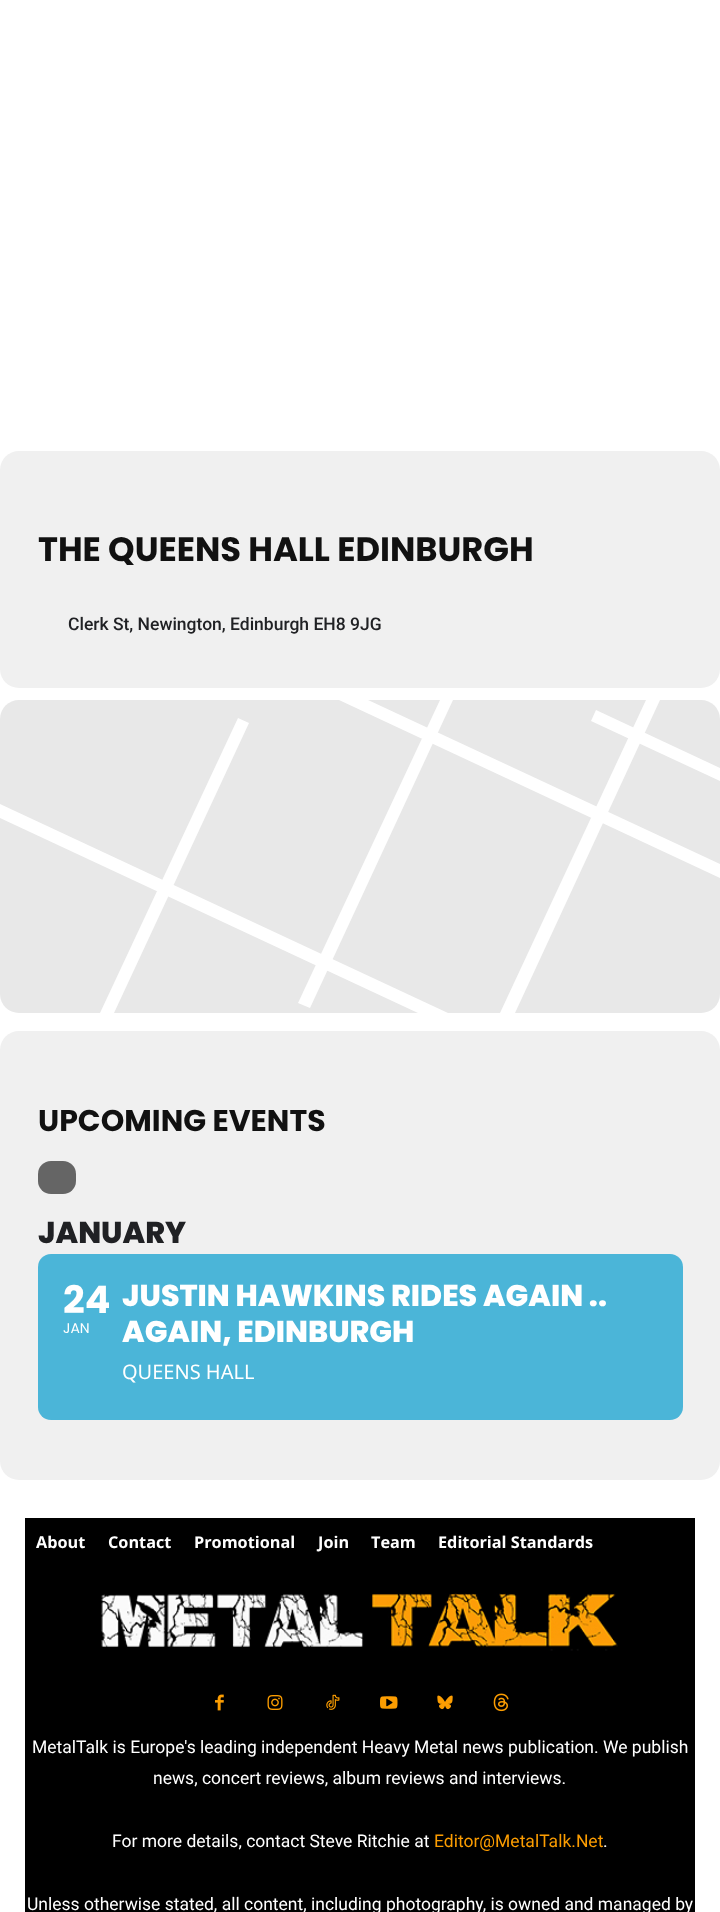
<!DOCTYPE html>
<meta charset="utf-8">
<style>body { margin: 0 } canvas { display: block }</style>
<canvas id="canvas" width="720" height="1912"></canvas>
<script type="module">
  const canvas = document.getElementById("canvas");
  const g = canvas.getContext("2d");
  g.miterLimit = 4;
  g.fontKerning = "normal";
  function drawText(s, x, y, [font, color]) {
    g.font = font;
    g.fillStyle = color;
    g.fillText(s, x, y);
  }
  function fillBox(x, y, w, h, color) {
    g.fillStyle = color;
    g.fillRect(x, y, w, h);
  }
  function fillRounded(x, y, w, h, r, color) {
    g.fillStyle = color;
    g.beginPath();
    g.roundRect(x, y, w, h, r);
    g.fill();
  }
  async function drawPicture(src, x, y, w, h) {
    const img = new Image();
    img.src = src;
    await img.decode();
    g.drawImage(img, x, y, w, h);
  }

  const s1 = ["bold 33.75px Poppins", "#111111"];
  const s2 = ["500 17.5px Roboto", "#202124"];
  const s3 = ["bold 30px Poppins", "#111111"];
  const s4 = ["800 30px Poppins", "#202124"];
  const s5 = ["bold 38px Poppins", "#FFFFFF"];
  const s6 = ["14px Poppins", "#FFFFFF"];
  const s7 = ["800 30px Poppins", "#FFFFFF"];
  const s8 = ["20px Noto Sans", "#FFFFFF"];
  const s9 = ["bold 16.25px Open Sans", "#FFFFFF"];
  const s10 = ["17.5px Roboto", "#FFFFFF"];
  const s11 = ["17.5px Roboto", "#FC9D01"];

  fillBox(0, 0, 720, 1912, "#FFFFFF");
  fillRounded(0, 451, 720, 237, 19, "#F0F0F0");
  drawText("THE QUEENS HALL EDINBURGH", 38, 561, s1);
  drawText("Clerk St, Newington, Edinburgh EH8 9JG", 68, 630, s2);
  fillRounded(0, 700, 720, 313, 19, "#E8E8E8");
  g.fillStyle = "#FFFFFF";
  g.beginPath();
  g.moveTo(720, 878);
  g.lineTo(339, 700);
  g.lineTo(368, 700);
  g.lineTo(720, 864);
  g.closePath();
  g.fill();
  g.beginPath();
  g.moveTo(249, 723);
  g.lineTo(114, 1013);
  g.lineTo(100, 1013);
  g.lineTo(238, 718);
  g.closePath();
  g.fill();
  g.beginPath();
  g.moveTo(0, 818);
  g.lineTo(0, 804);
  g.lineTo(448, 1013);
  g.lineTo(418, 1013);
  g.closePath();
  g.fill();
  g.beginPath();
  g.moveTo(453, 700);
  g.lineTo(310, 1008);
  g.lineTo(298, 1003);
  g.lineTo(440, 700);
  g.closePath();
  g.fill();
  g.beginPath();
  g.moveTo(596, 710);
  g.lineTo(720, 768);
  g.lineTo(720, 781);
  g.lineTo(591, 721);
  g.closePath();
  g.fill();
  g.beginPath();
  g.moveTo(500, 1013);
  g.lineTo(646, 700);
  g.lineTo(660, 700);
  g.lineTo(515, 1013);
  g.closePath();
  g.fill();
  fillRounded(0, 1031, 720, 449, 19, "#F0F0F0");
  drawText("UPCOMING EVENTS", 38, 1131, s3);
  fillRounded(38, 1161, 38, 33, 13, "#656565");
  drawText("JANUARY", 38, 1243, s4);
  fillRounded(38, 1254, 645, 166, 13, "#4BB5D8");
  drawText("24", 63, 1313, s5);
  drawText("JAN", 63, 1333, s6);
  drawText("JUSTIN HAWKINS RIDES AGAIN ..", 122, 1306, s7);
  drawText("AGAIN, EDINBURGH", 122, 1342, s7);
  drawText("QUEENS HALL", 122, 1379, s8);
  fillBox(25, 1518, 670, 394, "#000000");
  drawText("About", 36, 1548, s9);
  drawText("Contact", 108, 1548, s9);
  drawText("Promotional", 194, 1548, s9);
  drawText("Join", 318, 1548, s9);
  drawText("Team", 371, 1548, s9);
  drawText("Editorial Standards", 438, 1548, s9);
  await drawPicture("pic1.png", 101, 1593, 517, 58);
  await drawPicture("pic2.png", 215, 1694, 9, 17);
  await drawPicture("pic3.png", 267, 1695, 16, 15);
  await drawPicture("pic4.png", 326, 1694, 14, 16);
  await drawPicture("pic5.png", 380, 1696, 18, 13);
  await drawPicture("pic6.png", 437, 1695, 16, 15);
  await drawPicture("pic7.png", 493, 1693, 16, 19);
  drawText("MetalTalk is Europe's leading independent Heavy Metal news publication. We publish", 32, 1753, s10);
  drawText("news, concert reviews, album reviews and interviews.", 153, 1784, s10);
  drawText("For more details, contact Steve Ritchie at", 112, 1847, s10);
  drawText("Editor@MetalTalk.Net", 434, 1847, s11);
  drawText(".", 603, 1847, s10);
  drawText("Unless otherwise stated, all content, including photography, is owned and managed by", 27, 1910, s10);
</script>
